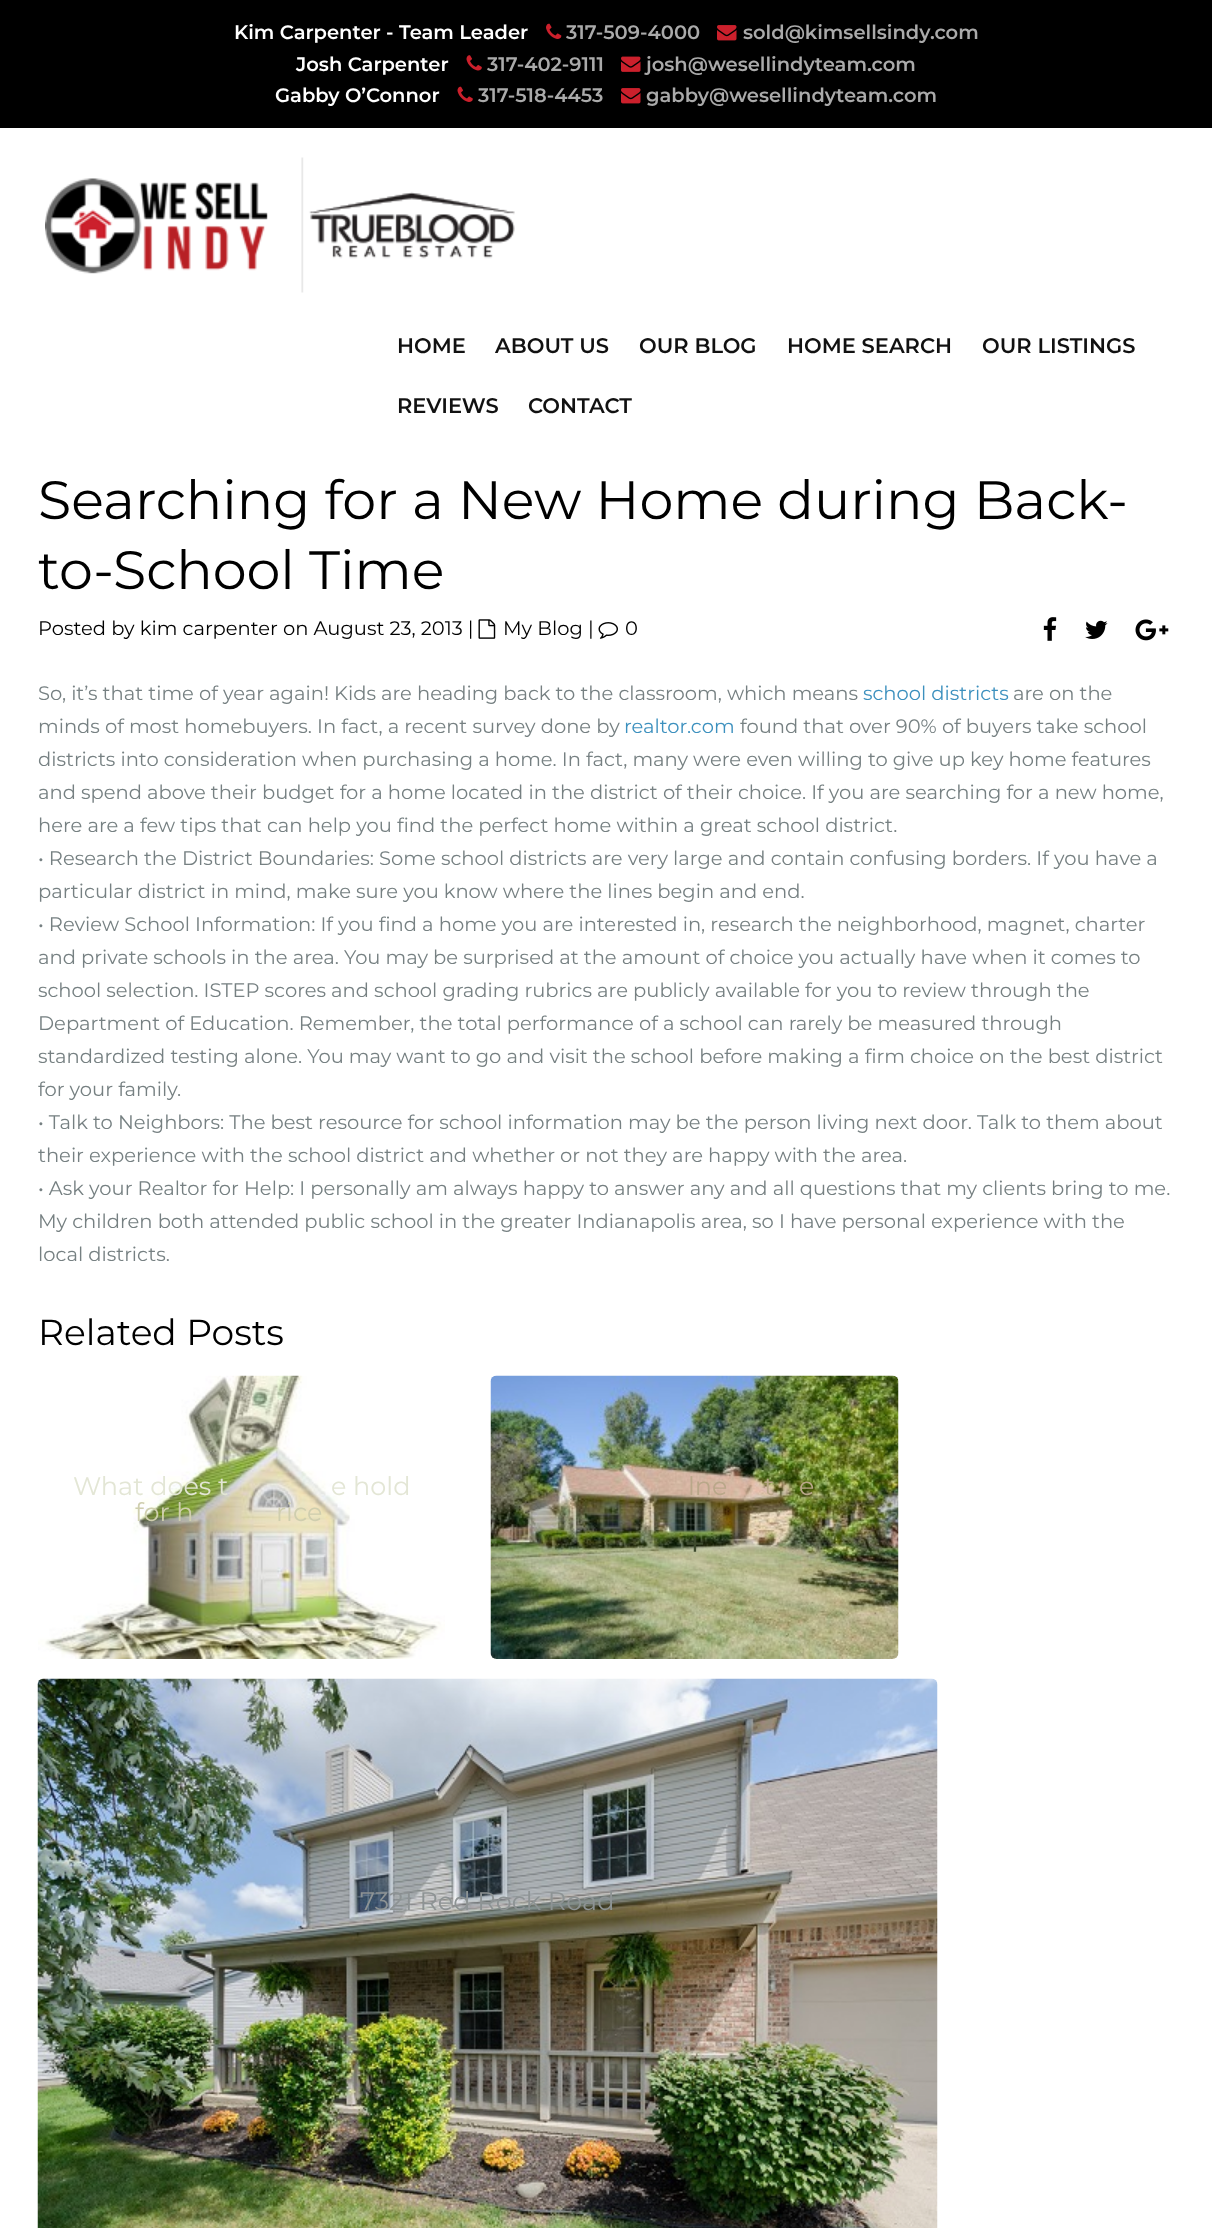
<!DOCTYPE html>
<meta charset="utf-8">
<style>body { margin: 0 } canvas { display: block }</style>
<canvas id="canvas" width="1212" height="2228"></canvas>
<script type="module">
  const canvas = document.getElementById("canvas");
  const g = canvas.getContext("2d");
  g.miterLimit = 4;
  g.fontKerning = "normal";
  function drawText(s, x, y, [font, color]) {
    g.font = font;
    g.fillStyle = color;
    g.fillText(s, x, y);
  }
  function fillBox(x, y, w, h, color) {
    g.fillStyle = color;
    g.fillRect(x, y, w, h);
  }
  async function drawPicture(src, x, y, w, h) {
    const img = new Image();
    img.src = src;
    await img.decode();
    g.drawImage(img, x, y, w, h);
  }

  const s1 = ["600 19.5px Montserrat", "#FFFFFF"];
  const s2 = ["600 19.5px Montserrat", "#AAAAAA"];
  const s3 = ["600 21px Montserrat", "#111111"];
  const s4 = ["54px Montserrat", "#000000"];
  const s5 = ["19.5px Montserrat", "#000000"];
  const s6 = ["19.5px Montserrat", "#768082"];
  const s7 = ["19.5px Montserrat", "#3C90BE"];
  const s8 = ["36px Montserrat", "#000000"];
  const s9 = ["25.5px Montserrat", "#E3E6D5"];
  const s10 = ["25.5px Montserrat", "#CFCEAE"];
  const s11 = ["25.5px Montserrat", "#B9A789"];
  const s12 = ["38px Montserrat", "#3E4A2E"];
  const s13 = ["25.5px Montserrat", "#8D9394"];

  fillBox(0, 0, 1212, 2228, "#FFFFFF");
  fillBox(0, 0, 1212, 128, "#000000");
  drawText("Kim Carpenter - Team Leader", 234, 39, s1);
  await drawPicture("pic1.png", 546, 23, 16, 16);
  drawText("317-509-4000", 566, 39, s2);
  await drawPicture("pic2.png", 717, 25, 20, 16);
  drawText("sold@kimsellsindy.com", 743, 39, s2);
  drawText("Josh Carpenter", 296, 71, s1);
  await drawPicture("pic3.png", 466, 55, 16, 16);
  drawText("317-402-9111", 487, 71, s2);
  await drawPicture("pic4.png", 621, 56, 20, 16);
  drawText("josh@wesellindyteam.com", 646, 71, s2);
  drawText("Gabby O’Connor", 275, 102, s1);
  await drawPicture("pic5.png", 457, 86, 16, 16);
  drawText("317-518-4453", 478, 102, s2);
  await drawPicture("pic2.png", 621, 88, 20, 16);
  drawText("gabby@wesellindyteam.com", 646, 102, s2);
  await drawPicture("pic6.png", 45, 157, 470, 136);
  drawText("HOME", 397, 353, s3);
  drawText("ABOUT US", 495, 353, s3);
  drawText("OUR BLOG", 639, 353, s3);
  drawText("HOME SEARCH", 787, 353, s3);
  drawText("OUR LISTINGS", 982, 353, s3);
  drawText("REVIEWS", 397, 413, s3);
  drawText("CONTACT", 528, 413, s3);
  drawText("Searching for a New Home during Back-", 38, 519, s4);
  drawText("to-School Time", 38, 589, s4);
  drawText("Posted by kim carpenter on August 23, 2013 |", 38, 635, s5);
  await drawPicture("pic7.png", 478, 619, 18, 20);
  drawText("My Blog |", 503, 635, s5);
  await drawPicture("pic8.png", 598, 622, 20, 17);
  drawText("0", 625, 635, s5);
  await drawPicture("pic9.png", 1043, 617, 14, 24);
  await drawPicture("pic10.png", 1085, 620, 23, 19);
  await drawPicture("pic11.png", 1135, 619, 34, 22);
  drawText("So, it’s that time of year again! Kids are heading back to the classroom, which means", 38, 700, s6);
  drawText("school districts", 863, 700, s7);
  drawText("are on the", 1013, 700, s6);
  drawText("minds of most homebuyers. In fact, a recent survey done by", 38, 733, s6);
  drawText("realtor.com", 624, 733, s7);
  drawText("found that over 90% of buyers take school", 740, 733, s6);
  drawText("districts into consideration when purchasing a home. In fact, many were even willing to give up key home features", 38, 766, s6);
  drawText("and spend above their budget for a home located in the district of their choice. If you are searching for a new home,", 38, 799, s6);
  drawText("here are a few tips that can help you find the perfect home within a great school district.", 38, 832, s6);
  drawText("• Research the District Boundaries: Some school districts are very large and contain confusing borders. If you have a", 38, 865, s6);
  drawText("particular district in mind, make sure you know where the lines begin and end.", 38, 898, s6);
  drawText("• Review School Information: If you find a home you are interested in, research the neighborhood, magnet, charter", 38, 931, s6);
  drawText("and private schools in the area. You may be surprised at the amount of choice you actually have when it comes to", 38, 964, s6);
  drawText("school selection. ISTEP scores and school grading rubrics are publicly available for you to review through the", 38, 997, s6);
  drawText("Department of Education. Remember, the total performance of a school can rarely be measured through", 38, 1030, s6);
  drawText("standardized testing alone. You may want to go and visit the school before making a firm choice on the best district", 38, 1063, s6);
  drawText("for your family.", 38, 1096, s6);
  drawText("• Talk to Neighbors: The best resource for school information may be the person living next door. Talk to them about", 38, 1129, s6);
  drawText("their experience with the school district and whether or not they are happy with the area.", 38, 1162, s6);
  drawText("• Ask your Realtor for Help: I personally am always happy to answer any and all questions that my clients bring to me.", 38, 1195, s6);
  drawText("My children both attended public school in the greater Indianapolis area, so I have personal experience with the", 38, 1228, s6);
  drawText("local districts.", 38, 1261, s6);
  drawText("Related Posts", 38, 1345, s8);
  await drawPicture("pic12.png", 38, 1375, 407, 284);
  drawText("What does t", 73, 1495, s9);
  drawText("e hold", 331, 1495, s9);
  drawText("for h", 135, 1521, s10);
  drawText("rice", 276, 1521, s10);
  await drawPicture("pic13.png", 490, 1375, 409, 284);
  drawText("lne", 688, 1495, s11);
  drawText("t", 764, 1495, s11);
  drawText("e", 799, 1495, s11);
  drawText("+", 684, 1557, s12);
  await drawPicture("pic14.png", 37, 1678, 901, 550);
  drawText("7321 Red Rock Road", 360, 1910, s13);
</script>
